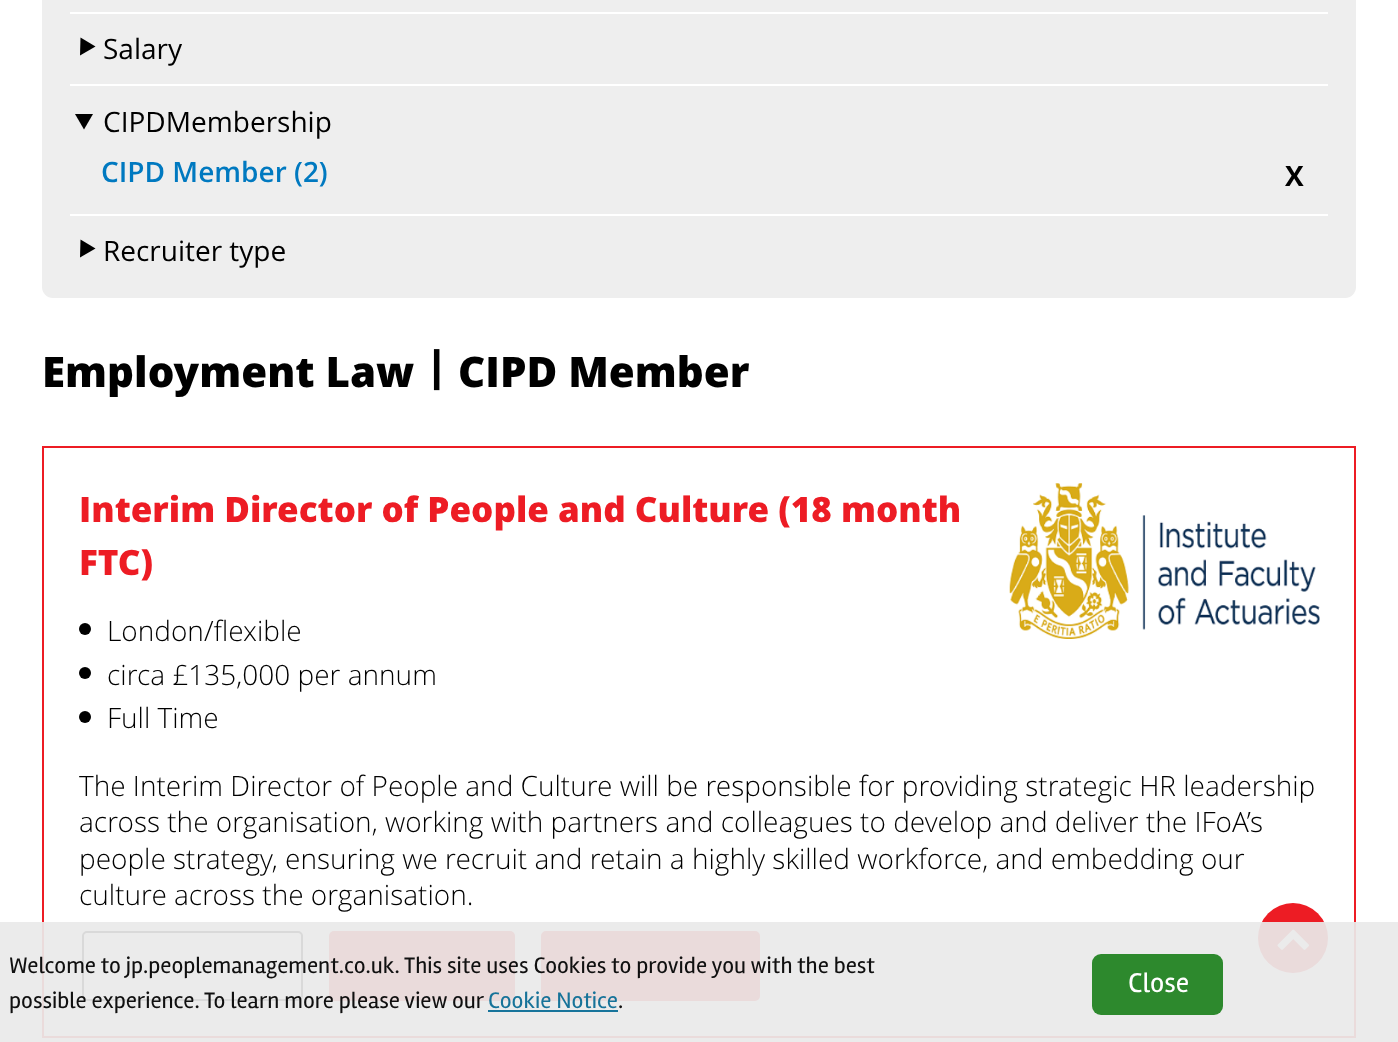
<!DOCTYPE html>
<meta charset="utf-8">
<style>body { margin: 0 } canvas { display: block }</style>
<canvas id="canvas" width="1398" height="1042"></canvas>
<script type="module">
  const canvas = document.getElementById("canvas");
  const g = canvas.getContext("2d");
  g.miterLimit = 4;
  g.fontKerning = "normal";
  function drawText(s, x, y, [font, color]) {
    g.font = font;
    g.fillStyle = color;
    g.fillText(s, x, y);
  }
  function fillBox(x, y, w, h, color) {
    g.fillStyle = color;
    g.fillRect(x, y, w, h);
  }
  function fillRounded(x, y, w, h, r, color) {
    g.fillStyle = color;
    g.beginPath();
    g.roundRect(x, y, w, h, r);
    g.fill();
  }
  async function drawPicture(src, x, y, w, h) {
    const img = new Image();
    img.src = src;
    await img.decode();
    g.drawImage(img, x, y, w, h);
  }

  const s1 = ["28px Open Sans", "#000000"];
  const s2 = ["600 28px Open Sans", "#0079C0"];
  const s3 = ["bold 28px Open Sans", "#000000"];
  const s4 = ["800 42px Open Sans", "#000000"];
  const s5 = ["800 35px Open Sans", "#ED1C24"];
  const s6 = ["300 28px Open Sans", "#000000"];
  const s7 = ["23.3px Rambla", "#101010"];
  const s8 = ["23.3px Rambla", "#167399"];
  const s9 = ["28px Rambla", "#FFFFFF"];

  fillBox(0, 0, 1398, 1042, "#FFFFFF");
  fillRounded(42, -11, 1314, 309, 11, "#EEEEEE");
  fillBox(70, 12, 1258, 2, "#FFFFFF");
  fillBox(70, 84, 1258, 2, "#FFFFFF");
  g.fillStyle = "#000000";
  g.beginPath();
  g.moveTo(80.5, 37.5);
  g.lineTo(95.5, 46.5);
  g.lineTo(80, 55.5);
  g.closePath();
  g.fill();
  drawText("Salary", 103, 59, s1);
  g.beginPath();
  g.moveTo(75, 114);
  g.lineTo(93, 114);
  g.lineTo(84, 129.5);
  g.closePath();
  g.fill();
  drawText("CIPDMembership", 103, 132, s1);
  fillBox(70, 214, 1258, 2, "#FFFFFF");
  drawText("CIPD Member (2)", 101, 182, s2);
  drawText("X", 1285, 186, s3);
  g.beginPath();
  g.moveTo(80.5, 239.5);
  g.lineTo(95.5, 248.5);
  g.lineTo(80, 257.5);
  g.closePath();
  g.fill();
  drawText("Recruiter type", 103, 261, s1);
  drawText("Employment Law", 42, 387, s4);
  drawText("|", 426, 381, s4);
  drawText("CIPD Member", 458, 387, s4);
  g.strokeStyle = "#ED1C24";
  g.lineWidth = 2;
  g.strokeRect(43, 447, 1312, 590);
  await drawPicture("pic1.png", 1009, 483, 311, 156);
  drawText("Interim Director of People and Culture (18 month", 79, 522, s5);
  drawText("FTC)", 79, 575, s5);
  g.fillStyle = "#000000";
  g.beginPath();
  g.arc(85, 629, 6, 0, Math.PI * 2);
  g.fill();
  drawText("London/flexible", 107, 641, s6);
  g.beginPath();
  g.arc(85, 673, 6, 0, Math.PI * 2);
  g.fill();
  drawText("circa £135,000 per annum", 107, 685, s6);
  g.beginPath();
  g.arc(85, 717, 6, 0, Math.PI * 2);
  g.fill();
  drawText("Full Time", 107, 728, s6);
  drawText("The Interim Director of People and Culture will be responsible for providing strategic HR leadership", 79, 796, s6);
  drawText("across the organisation, working with partners and colleagues to develop and deliver the IFoA’s", 79, 832, s6);
  drawText("people strategy, ensuring we recruit and retain a highly skilled workforce, and embedding our", 79, 869, s6);
  drawText("culture across the organisation.", 79, 905, s6);
  g.beginPath();
  g.roundRect(83, 932, 219, 68, 4);
  g.strokeStyle = "#000000";
  g.stroke();
  fillRounded(329, 931, 186, 70, 5, "#ED1C24");
  g.beginPath();
  g.roundRect(542, 932, 217, 68, 4);
  g.fill();
  g.strokeStyle = "#ED1C24";
  g.stroke();
  g.beginPath();
  g.arc(1293, 938, 35, 0, Math.PI * 2);
  g.fill();
  await drawPicture("pic2.png", 1277, 929, 32, 21);
  fillBox(0, 922, 1398, 120, "rgba(234, 234, 234, 0.93)");
  drawText("Welcome to jp.peoplemanagement.co.uk. This site uses Cookies to provide you with the best", 9, 973, s7);
  drawText("possible experience. To learn more please view our", 9, 1008, s7);
  drawText("Cookie Notice", 488, 1008, s8);
  fillBox(488, 1010, 130, 2, "#17749B");
  drawText(".", 618, 1008, s7);
  fillRounded(1092, 954, 131, 61, 9, "rgba(30, 129, 30, 0.93)");
  drawText("Close", 1128, 992, s9);
</script>
